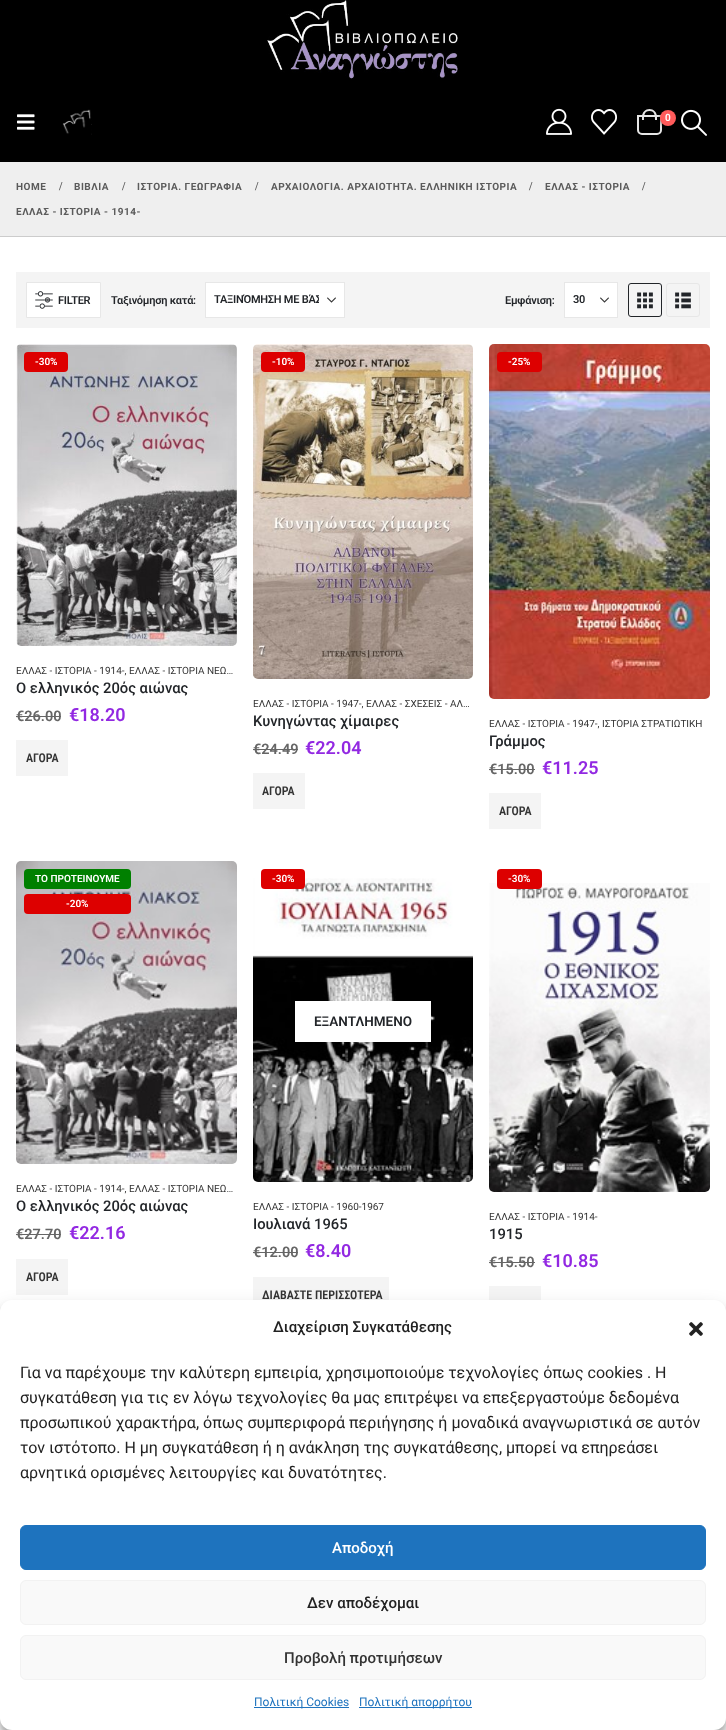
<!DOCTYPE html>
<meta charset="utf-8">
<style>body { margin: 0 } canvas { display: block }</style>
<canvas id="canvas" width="726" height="1730"></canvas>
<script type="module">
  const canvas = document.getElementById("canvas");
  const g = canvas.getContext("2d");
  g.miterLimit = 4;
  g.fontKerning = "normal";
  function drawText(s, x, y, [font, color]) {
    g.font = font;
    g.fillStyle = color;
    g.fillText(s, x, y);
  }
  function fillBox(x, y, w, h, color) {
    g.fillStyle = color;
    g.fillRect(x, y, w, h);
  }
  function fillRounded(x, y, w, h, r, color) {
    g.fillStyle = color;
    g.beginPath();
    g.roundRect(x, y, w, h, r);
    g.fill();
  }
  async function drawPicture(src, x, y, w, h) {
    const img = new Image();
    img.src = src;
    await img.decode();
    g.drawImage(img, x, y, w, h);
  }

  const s1 = ["600 10px Roboto", "#FFFFFF"];
  const s2 = ["bold 10px Roboto", "#5B5B5B"];
  const s3 = ["bold 12px Liberation Serif", "#5B5B5B"];
  const s4 = ["600 11px Roboto", "#222529"];
  const s5 = ["10px Roboto", "#333333"];
  const s6 = ["500 14.75px Roboto", "#222529"];
  const s7 = ["600 14.5px Roboto", "#666666"];
  const s8 = ["600 18px Roboto", "#9228E2"];
  const s9 = ["600 12px Roboto Condensed", "#333333"];
  const s10 = ["600 13.5px Roboto", "#222529"];
  const s11 = ["500 15px Roboto", "#222222"];
  const s12 = ["16px Roboto", "#222222"];
  const s13 = ["500 15px Roboto", "#FFFFFF"];
  const s14 = ["500 15px Roboto", "#333333"];
  const s15 = ["12px Roboto", "#1E73BE"];

  fillBox(0, 0, 726, 1730, "#FFFFFF");
  fillBox(0, 0, 726, 162, "#000000");
  await drawPicture("pic1.png", 267, 0, 191, 79);
  await drawPicture("pic2.png", 17, 114, 18, 16);
  await drawPicture("pic3.png", 62, 109, 30, 26);
  await drawPicture("pic4.png", 546, 108, 26, 27);
  await drawPicture("pic5.png", 591, 109, 26, 26);
  g.beginPath();
  g.roundRect(638, 116, 23, 18, [0, 0, 4, 4]);
  g.strokeStyle = "#E6E6E6";
  g.lineWidth = 2;
  g.stroke();
  g.fillStyle = "#E6E6E6";
  g.beginPath();
  g.moveTo(649.5, 109);
  g.bezierCurveTo(653.5, 109, 657, 112.5, 657, 116.5);
  g.lineTo(657, 120);
  g.lineTo(642, 120);
  g.lineTo(642, 116.5);
  g.bezierCurveTo(642, 112.5, 645.5, 109, 649.5, 109);
  g.closePath();
  g.moveTo(649.5, 111);
  g.bezierCurveTo(655, 111, 655, 116, 655, 120);
  g.lineTo(644, 120);
  g.bezierCurveTo(644, 116, 644, 111, 649.5, 111);
  g.closePath();
  g.fill("evenodd");
  g.fillStyle = "rgba(0, 0, 0, 0.3)";
  g.filter = "blur(1px)";
  g.beginPath();
  g.roundRect(659, 111, 16, 16, 8);
  g.fill();
  g.filter = "none";
  g.fillStyle = "#FF5B5B";
  g.beginPath();
  g.arc(668, 118, 8, 0, Math.PI * 2);
  g.fill();
  drawText("0", 665, 121, s1);
  await drawPicture("pic6.png", 681, 109, 26, 27);
  fillBox(0, 162, 726, 74, "#EFEFEF");
  fillBox(0, 236, 726, 1, "#CCCCCC");
  g.letterSpacing = "0.5px";
  drawText("HOME", 16, 190, s2);
  drawText("/", 59, 190, s3);
  drawText("ΒΙΒΛΙΑ", 74, 190, s2);
  drawText("/", 122, 190, s3);
  drawText("ΙΣΤΟΡΙΑ. ΓΕΩΓΡΑΦΙΑ", 137, 190, s2);
  drawText("/", 255, 190, s3);
  drawText("ΑΡΧΑΙΟΛΟΓΙΑ. ΑΡΧΑΙΟΤΗΤΑ. ΕΛΛΗΝΙΚΗ ΙΣΤΟΡΙΑ", 271, 190, s2);
  drawText("/", 529, 190, s3);
  drawText("ΕΛΛΑΣ - ΙΣΤΟΡΙΑ", 545, 190, s2);
  drawText("/", 642, 190, s3);
  drawText("ΕΛΛΑΣ - ΙΣΤΟΡΙΑ - 1914-", 16, 215, s2);
  fillBox(16, 272, 694, 56, "#F4F4F4");
  g.fillStyle = "#FFFFFF";
  g.beginPath();
  g.rect(26.5, 282.5, 74, 35);
  g.fill();
  g.strokeStyle = "#E7E7E7";
  g.lineWidth = 1;
  g.stroke();
  await drawPicture("pic7.png", 35, 291, 18, 18);
  g.letterSpacing = "-0.25px";
  drawText("FILTER", 58, 304, s4);
  drawText("Ταξινόμηση κατά:", 111, 304, s4);
  fillBox(206, 283, 138, 34, "#FFFFFF");
  await drawPicture("pic8.png", 327, 297, 9, 6);
  g.strokeRect(205.5, 282.5, 139, 35);
  g.save();
  g.beginPath();
  g.rect(214, 292, 105, 16);
  g.clip();
  drawText("ΤΑΞΙΝΌΜΗΣΗ ΜΕ ΒΆΣ", 214, 303, s4);
  g.restore();
  drawText("Εμφάνιση:", 505, 304, s4);
  fillBox(565, 283, 52, 34, "#FFFFFF");
  await drawPicture("pic8.png", 600, 297, 9, 6);
  g.strokeRect(564.5, 282.5, 53, 35);
  drawText("30", 573, 303, s4);
  g.beginPath();
  g.roundRect(628.5, 283.5, 33, 33, 2.5);
  g.strokeStyle = "#222529";
  g.stroke();
  await drawPicture("pic9.png", 637, 292, 16, 17);
  g.beginPath();
  g.roundRect(666.5, 283.5, 33, 33, 2.5);
  g.strokeStyle = "#E7E7E7";
  g.stroke();
  await drawPicture("pic10.png", 675, 292, 16, 17);
  await drawPicture("pic11.png", 16, 344, 221, 302);
  fillRounded(24, 352, 44, 20, 4, "#DD0000");
  g.letterSpacing = "0px";
  drawText("-30%", 35, 365, s1);
  drawText("ΕΛΛΑΣ - ΙΣΤΟΡΙΑ - 1914-, ΕΛΛΑΣ - ΙΣΤΟΡΙΑ ΝΕΩ…", 16, 674, s5);
  drawText("Ο ελληνικός 20ός αιώνας", 16, 693, s6);
  drawText("€26.00", 16, 721, s7);
  fillBox(16, 716, 45, 1, "#666666");
  drawText("€18.20", 69, 721, s8);
  fillBox(16, 740, 52, 36, "#F4F4F4");
  drawText("ΑΓΟΡΑ", 26, 762, s9);
  await drawPicture("pic12.png", 253, 344, 220, 335);
  fillRounded(261, 352, 44, 20, 4, "#DD0000");
  drawText("-10%", 272, 365, s1);
  drawText("ΕΛΛΑΣ - ΙΣΤΟΡΙΑ - 1947-, ΕΛΛΑΣ - ΣΧΕΣΕΙΣ - ΑΛ…", 253, 707, s5);
  drawText("Κυνηγώντας χίμαιρες", 253, 726, s6);
  drawText("€24.49", 253, 754, s7);
  fillBox(253, 749, 45, 1, "#666666");
  drawText("€22.04", 305, 754, s8);
  fillBox(253, 773, 52, 36, "#F4F4F4");
  drawText("ΑΓΟΡΑ", 262, 795, s9);
  await drawPicture("pic13.png", 489, 344, 221, 355);
  fillRounded(497, 352, 45, 20, 4, "#DD0000");
  drawText("-25%", 508, 365, s1);
  drawText("ΕΛΛΑΣ - ΙΣΤΟΡΙΑ - 1947-, ΙΣΤΟΡΙΑ ΣΤΡΑΤΙΩΤΙΚΗ", 489, 727, s5);
  drawText("Γράμμος", 489, 746, s6);
  drawText("€15.00", 489, 774, s7);
  fillBox(489, 769, 46, 1, "#666666");
  drawText("€11.25", 542, 774, s8);
  fillBox(489, 793, 52, 36, "#F4F4F4");
  drawText("ΑΓΟΡΑ", 499, 815, s9);
  await drawPicture("pic14.png", 16, 861, 221, 303);
  fillRounded(24, 869, 107, 20, 4, "#008000");
  drawText("ΤΟ ΠΡΟΤΕΙΝΟΥΜΕ", 35, 882, s1);
  fillRounded(24, 894, 107, 20, 4, "#DD0000");
  drawText("-20%", 66, 907, s1);
  drawText("ΕΛΛΑΣ - ΙΣΤΟΡΙΑ - 1914-, ΕΛΛΑΣ - ΙΣΤΟΡΙΑ ΝΕΩ…", 16, 1192, s5);
  drawText("Ο ελληνικός 20ός αιώνας", 16, 1211, s6);
  drawText("€27.70", 16, 1239, s7);
  fillBox(16, 1234, 45, 1, "#666666");
  drawText("€22.16", 69, 1239, s8);
  fillBox(16, 1259, 52, 36, "#F4F4F4");
  drawText("ΑΓΟΡΑ", 26, 1281, s9);
  await drawPicture("pic15.png", 253, 878, 220, 304);
  fillRounded(261, 869, 44, 20, 4, "#DD0000");
  drawText("-30%", 272, 882, s1);
  fillBox(295, 1001, 136, 41, "#FFFFFF");
  drawText("ΕΞΑΝΤΛΗΜΕΝΟ", 314, 1026, s10);
  drawText("ΕΛΛΑΣ - ΙΣΤΟΡΙΑ - 1960-1967", 253, 1210, s5);
  drawText("Ιουλιανά 1965", 253, 1229, s6);
  drawText("€12.00", 253, 1257, s7);
  fillBox(253, 1252, 45, 1, "#666666");
  drawText("€8.40", 305, 1257, s8);
  fillBox(253, 1277, 136, 23, "#F4F4F4");
  drawText("ΔΙΑΒΑΣΤΕ ΠΕΡΙΣΣΟΤΕΡΑ", 262, 1299, s9);
  await drawPicture("pic16.png", 489, 883, 221, 309);
  fillRounded(497, 869, 45, 20, 4, "#DD0000");
  drawText("-30%", 508, 882, s1);
  drawText("ΕΛΛΑΣ - ΙΣΤΟΡΙΑ - 1914-", 489, 1220, s5);
  drawText("1915", 489, 1239, s6);
  drawText("€15.50", 489, 1267, s7);
  fillBox(489, 1262, 46, 1, "#666666");
  drawText("€10.85", 542, 1267, s8);
  fillBox(489, 1286, 52, 14, "#F4F4F4");
  g.fillStyle = "rgba(0, 0, 0, 0.23)";
  g.filter = "blur(3px)";
  g.beginPath();
  g.roundRect(0, 1306, 726, 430, 12);
  g.fill();
  g.filter = "none";
  g.fillStyle = "rgba(0, 0, 0, 0.19)";
  g.filter = "blur(10px)";
  g.beginPath();
  g.roundRect(0, 1310, 726, 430, 12);
  g.fill();
  g.filter = "none";
  fillRounded(0, 1300, 726, 430, 12, "#FFFFFF");
  drawText("Διαχείριση Συγκατάθεσης", 273, 1332, s11);
  await drawPicture("pic17.png", 689, 1322, 14, 14);
  drawText("Για να παρέχουμε την καλύτερη εμπειρία, χρησιμοποιούμε τεχνολογίες όπως cookies . Η", 20, 1378, s12);
  drawText("συγκατάθεση για τις εν λόγω τεχνολογίες θα μας επιτρέψει να επεξεργαστούμε δεδομένα", 20, 1403, s12);
  drawText("προσωπικού χαρακτήρα, όπως συμπεριφορά περιήγησης ή μοναδικά αναγνωριστικά σε αυτόν", 20, 1428, s12);
  drawText("τον ιστότοπο. Η μη συγκατάθεση ή η ανάκληση της συγκατάθεσης, μπορεί να επηρεάσει", 20, 1453, s12);
  drawText("αρνητικά ορισμένες λειτουργίες και δυνατότητες.", 20, 1478, s12);
  g.fillStyle = "#1E73BE";
  g.beginPath();
  g.roundRect(20.5, 1525.5, 685, 44, 5.5);
  g.fill();
  g.strokeStyle = "#1E73BE";
  g.stroke();
  drawText("Αποδοχή", 332, 1553, s13);
  g.fillStyle = "#F9F9F9";
  g.beginPath();
  g.roundRect(20.5, 1580.5, 685, 44, 5.5);
  g.fill();
  g.strokeStyle = "#F2F2F2";
  g.stroke();
  drawText("Δεν αποδέχομαι", 307, 1608, s11);
  g.fillStyle = "#F9F9F9";
  g.beginPath();
  g.roundRect(20.5, 1635.5, 685, 44, 5.5);
  g.fill();
  g.stroke();
  drawText("Προβολή προτιμήσεων", 284, 1663, s14);
  fillBox(254, 1707, 95, 1, "#1E73BE");
  drawText("Πολιτική Cookies", 254, 1706, s15);
  fillBox(359, 1707, 113, 1, "#1E73BE");
  drawText("Πολιτική απορρήτου", 359, 1706, s15);
</script>
